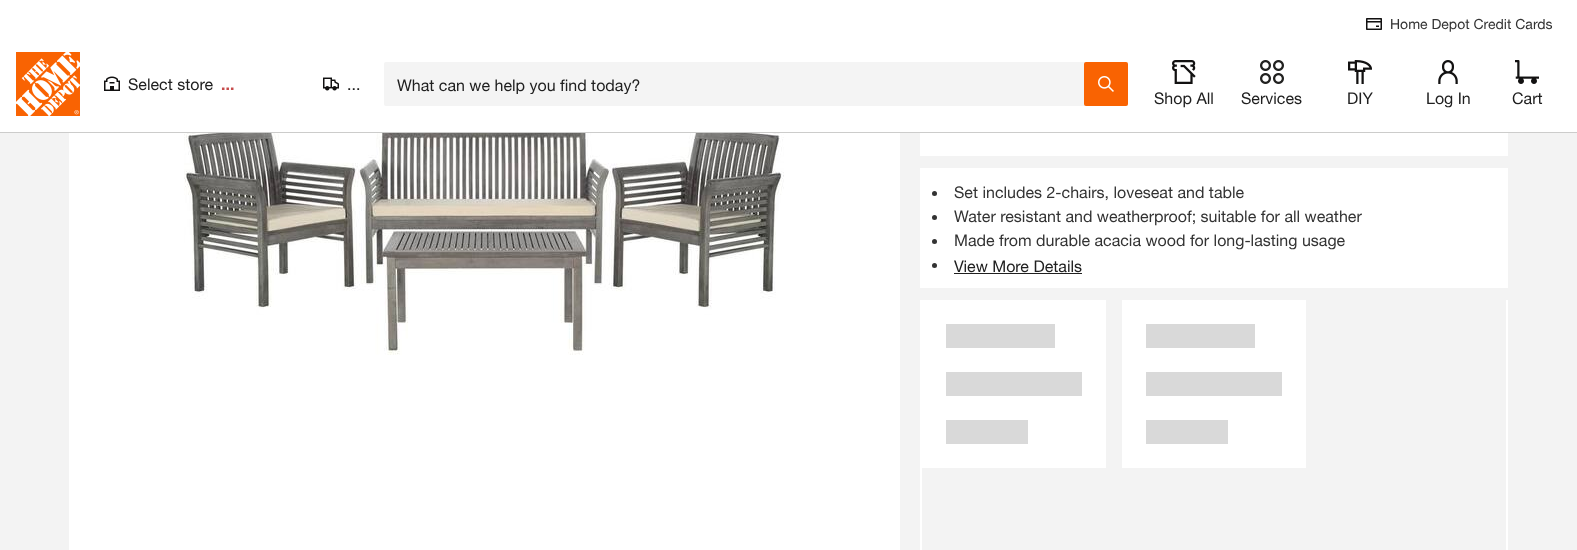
<!DOCTYPE html>
<meta charset="utf-8">
<style>body { margin: 0 } canvas { display: block }</style>
<canvas id="canvas" width="1577" height="550"></canvas>
<script type="module">
  const canvas = document.getElementById("canvas");
  const g = canvas.getContext("2d");
  g.miterLimit = 4;
  g.fontKerning = "normal";
  function drawText(s, x, y, [font, color]) {
    g.font = font;
    g.fillStyle = color;
    g.fillText(s, x, y);
  }
  function fillBox(x, y, w, h, color) {
    g.fillStyle = color;
    g.fillRect(x, y, w, h);
  }
  function fillRounded(x, y, w, h, r, color) {
    g.fillStyle = color;
    g.beginPath();
    g.roundRect(x, y, w, h, r);
    g.fill();
  }
  async function drawPicture(src, x, y, w, h) {
    const img = new Image();
    img.src = src;
    await img.decode();
    g.drawImage(img, x, y, w, h);
  }

  const s1 = ["14px 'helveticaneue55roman'", "#333333"];
  const s2 = ["16px 'helveticaneue55roman'", "#202020"];
  const s3 = ["bold 16px 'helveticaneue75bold'", "#C64C4C"];
  const s4 = ["16px 'helveticaneue55roman'", "#333333"];

  fillBox(0, 0, 1577, 550, "#F3F3F3");
  fillBox(0, 0, 1577, 132, "#FFFFFF");
  fillBox(0, 132, 1577, 1, "#CCCCCB");
  await drawPicture("pic1.png", 1366, 18, 16, 12);
  drawText("Home Depot Credit Cards", 1390, 29, s1);
  await drawPicture("pic2.png", 16, 52, 64, 64);
  await drawPicture("pic3.png", 104, 76, 16, 15);
  drawText("Select store", 128, 90, s2);
  drawText("...", 221, 90, s3);
  await drawPicture("pic4.png", 323, 77, 16, 14);
  drawText("...", 347, 90, s2);
  fillRounded(384, 62, 744, 44, 2, "#F4F4F4");
  g.save();
  g.beginPath();
  g.rect(397, 75, 686, 19);
  g.clip();
  drawText("What can we help you find today?", 397, 91, s2);
  g.restore();
  fillRounded(1084, 62, 44, 44, 2, "#F96302");
  await drawPicture("pic5.png", 1098, 76, 16, 16);
  await drawPicture("pic6.png", 1172, 60, 24, 24);
  drawText("Shop All", 1154, 104, s2);
  await drawPicture("pic7.png", 1260, 60, 24, 24);
  drawText("Services", 1241, 104, s2);
  await drawPicture("pic8.png", 1348, 60, 24, 24);
  drawText("DIY", 1347, 104, s2);
  await drawPicture("pic9.png", 1438, 60, 20, 24);
  drawText("Log In", 1426, 104, s2);
  await drawPicture("pic10.png", 1515, 60, 24, 24);
  drawText("Cart", 1512, 104, s2);
  fillBox(69, 133, 831, 417, "#FFFFFF");
  await drawPicture("pic11.png", 184, 133, 600, 222);
  fillBox(920, 133, 588, 23, "#FFFFFF");
  fillBox(920, 168, 588, 120, "#FFFFFF");
  g.fillStyle = "#333333";
  g.beginPath();
  g.arc(934.5, 193.5, 2.5, 0, Math.PI * 2);
  g.fill();
  drawText("Set includes 2-chairs, loveseat and table", 954, 198, s4);
  g.beginPath();
  g.arc(934.5, 217.5, 2.5, 0, Math.PI * 2);
  g.fill();
  drawText("Water resistant and weatherproof; suitable for all weather", 954, 222, s4);
  g.beginPath();
  g.arc(934.5, 241.5, 2.5, 0, Math.PI * 2);
  g.fill();
  drawText("Made from durable acacia wood for long-lasting usage", 954, 246, s4);
  g.beginPath();
  g.arc(934.5, 265.5, 2.5, 0, Math.PI * 2);
  g.fill();
  drawText("View More Details", 954, 272, s2);
  fillBox(954, 273, 128, 1, "#202020");
  fillBox(920, 300, 588, 250, "#FFFFFF");
  fillBox(922, 300, 584, 250, "#F3F3F3");
  fillBox(922, 300, 184, 168, "#FFFFFF");
  fillBox(946, 324, 109, 24, "#D9D9D9");
  fillBox(946, 372, 136, 24, "#D9D9D9");
  fillBox(946, 420, 82, 24, "#D9D9D9");
  fillBox(1122, 300, 184, 168, "#FFFFFF");
  fillBox(1146, 324, 109, 24, "#D9D9D9");
  fillBox(1146, 372, 136, 24, "#D9D9D9");
  fillBox(1146, 420, 82, 24, "#D9D9D9");
</script>
